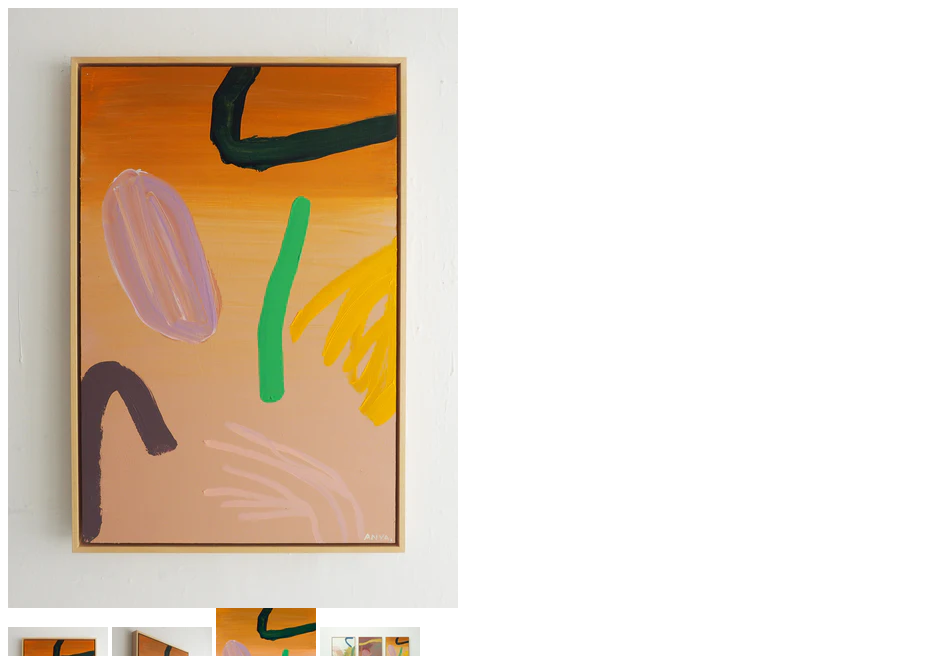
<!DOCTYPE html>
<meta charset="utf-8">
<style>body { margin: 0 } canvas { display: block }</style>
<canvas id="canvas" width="928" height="656"></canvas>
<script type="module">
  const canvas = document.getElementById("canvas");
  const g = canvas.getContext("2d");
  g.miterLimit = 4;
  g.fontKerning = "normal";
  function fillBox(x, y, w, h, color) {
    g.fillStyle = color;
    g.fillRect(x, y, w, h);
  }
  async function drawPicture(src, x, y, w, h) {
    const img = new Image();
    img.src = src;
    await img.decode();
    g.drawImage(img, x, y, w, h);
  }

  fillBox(0, 0, 928, 656, "#FFFFFF");
  await drawPicture("pic1.png", 8, 8, 450, 600);
  await drawPicture("pic2.png", 8, 627, 100, 29);
  await drawPicture("pic3.png", 112, 627, 100, 29);
  await drawPicture("pic4.png", 216, 608, 100, 48);
  await drawPicture("pic5.png", 320, 627, 100, 29);
</script>
